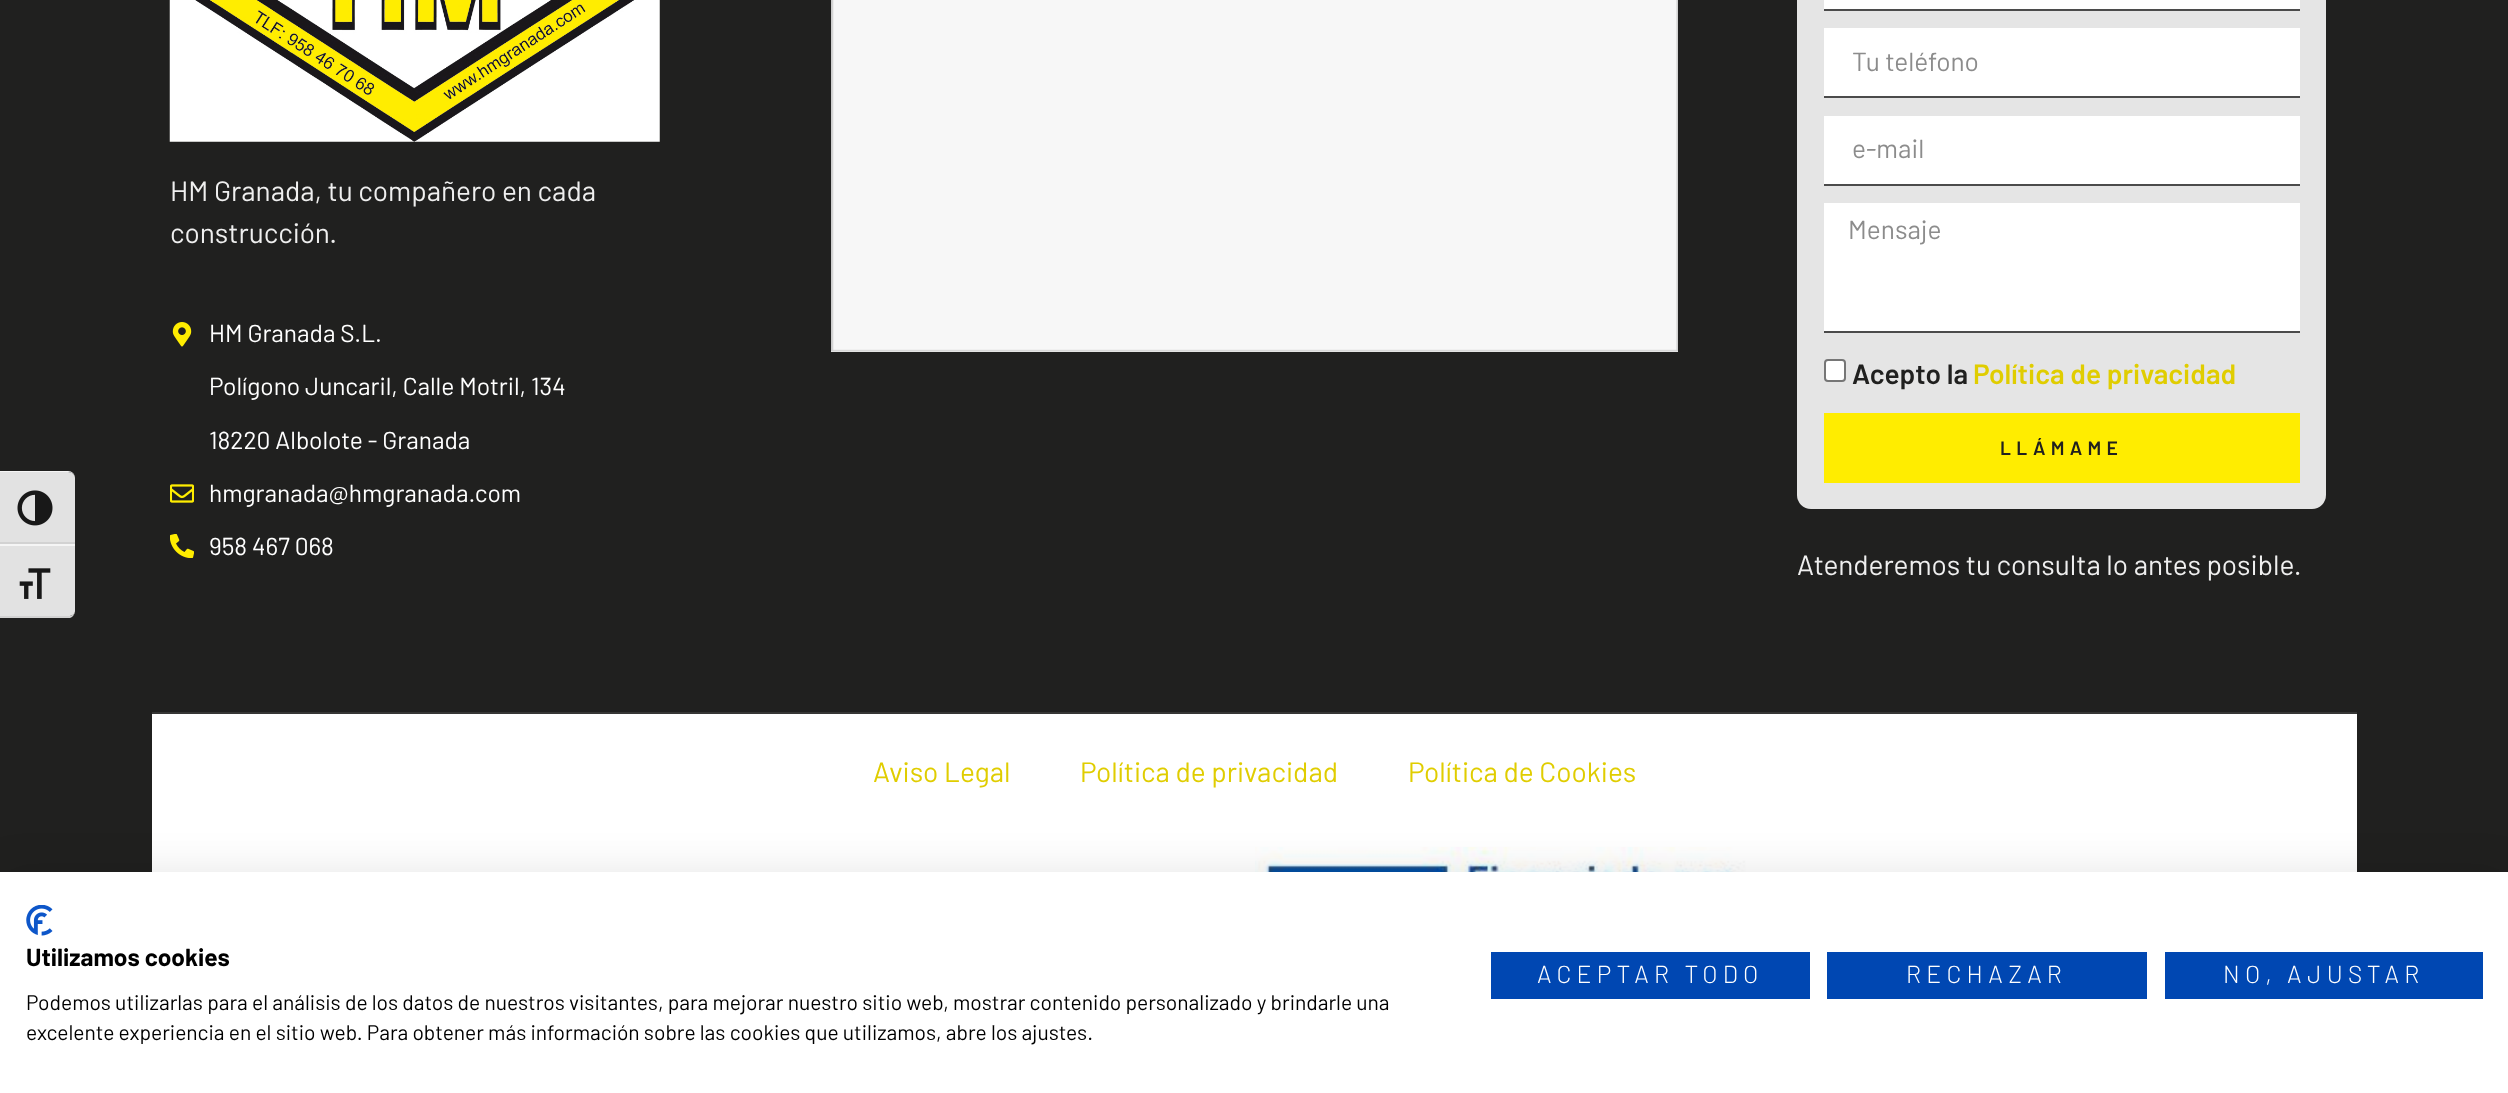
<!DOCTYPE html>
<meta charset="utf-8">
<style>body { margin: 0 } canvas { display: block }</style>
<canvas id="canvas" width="2508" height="1093"></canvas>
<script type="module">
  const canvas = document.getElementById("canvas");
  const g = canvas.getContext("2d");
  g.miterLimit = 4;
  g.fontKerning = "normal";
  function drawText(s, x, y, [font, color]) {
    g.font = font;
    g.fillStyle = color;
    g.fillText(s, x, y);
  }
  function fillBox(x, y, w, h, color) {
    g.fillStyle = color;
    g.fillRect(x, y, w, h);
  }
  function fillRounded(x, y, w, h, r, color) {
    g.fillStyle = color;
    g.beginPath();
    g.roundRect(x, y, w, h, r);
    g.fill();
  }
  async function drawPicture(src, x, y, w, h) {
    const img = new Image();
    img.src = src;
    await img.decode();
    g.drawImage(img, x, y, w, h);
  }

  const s1 = ["28px Barlow", "#EFEFEF"];
  const s2 = ["24.5px Barlow", "#FFFFFF"];
  const s3 = ["26.25px Barlow", "#8C8C8C"];
  const s4 = ["600 28px Barlow", "#20201F"];
  const s5 = ["600 28px Barlow", "#E0CD00"];
  const s6 = ["600 19.25px Barlow", "#20201F"];
  const s7 = ["28px Barlow", "#E0CD00"];
  const s8 = ["bold 24.5px Barlow", "#000000"];
  const s9 = ["21px Barlow", "#000000"];
  const s10 = ["300 24.5px Barlow", "#FFFFFF"];

  fillBox(0, 0, 2508, 1093, "#20201F");
  g.fillStyle = "#E2E2E2";
  g.beginPath();
  g.moveTo(0, 472);
  g.lineTo(68, 472);
  g.bezierCurveTo(72, 472, 75, 475, 75, 478);
  g.lineTo(75, 542);
  g.lineTo(0, 542);
  g.closePath();
  g.fill();
  g.fillStyle = "#F5F5F5";
  g.beginPath();
  g.moveTo(0, 472);
  g.lineTo(68, 472);
  g.bezierCurveTo(72, 472, 75, 475, 75, 478);
  g.bezierCurveTo(75, 474, 72, 471, 68, 471);
  g.lineTo(0, 471);
  g.closePath();
  g.fill();
  fillBox(0, 542, 75, 2, "#D2D2D2");
  await drawPicture("pic1.png", 17, 490, 36, 36);
  g.fillStyle = "#E2E2E2";
  g.beginPath();
  g.moveTo(0, 546);
  g.lineTo(75, 546);
  g.lineTo(75, 611);
  g.bezierCurveTo(75, 614, 72, 616, 68, 616);
  g.lineTo(0, 616);
  g.closePath();
  g.fill();
  fillBox(0, 544, 75, 2, "#F5F5F5");
  g.fillStyle = "#D2D2D2";
  g.beginPath();
  g.moveTo(70, 618);
  g.bezierCurveTo(73, 617, 75, 614, 75, 611);
  g.bezierCurveTo(75, 614, 72, 616, 68, 616);
  g.lineTo(0, 616);
  g.lineTo(0, 618);
  g.closePath();
  g.fill();
  await drawPicture("pic2.png", 19, 568, 32, 31);
  fillBox(152, 712, 2205, 2, "#363635");
  await drawPicture("pic3.png", 169, 0, 491, 142);
  drawText("HM Granada, tu compañero en cada", 170, 201, s1);
  drawText("construcción.", 170, 243, s1);
  await drawPicture("pic4.png", 172, 322, 20, 25);
  drawText("HM Granada S.L.", 209, 342, s2);
  drawText("Polígono Juncaril, Calle Motril, 134", 209, 395, s2);
  drawText("18220 Albolote - Granada", 209, 449, s2);
  await drawPicture("pic5.png", 170, 484, 24, 19);
  drawText("hmgranada@hmgranada.com", 209, 502, s2);
  await drawPicture("pic6.png", 170, 534, 24, 24);
  drawText("958 467 068", 209, 555, s2);
  await drawPicture("pic7.png", 831, 0, 847, 352);
  fillRounded(1797, -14, 529, 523, 14, "#E5E5E5");
  fillBox(1824, 0, 476, 9, "#FFFFFF");
  fillBox(1824, 9, 476, 2, "#4B4B4B");
  fillBox(1824, 28, 476, 68, "#FFFFFF");
  fillBox(1824, 96, 476, 2, "#4B4B4B");
  drawText("Tu teléfono", 1852, 71, s3);
  fillBox(1824, 116, 476, 68, "#FFFFFF");
  fillBox(1824, 184, 476, 2, "#4B4B4B");
  drawText("e-mail", 1852, 158, s3);
  fillBox(1824, 203, 476, 128, "#FFFFFF");
  fillBox(1824, 331, 476, 2, "#4B4B4B");
  drawText("Mensaje", 1848, 239, s3);
  g.fillStyle = "#FFFFFF";
  g.beginPath();
  g.roundRect(1825, 360, 20, 21, 3);
  g.fill();
  g.strokeStyle = "#767676";
  g.lineWidth = 2;
  g.stroke();
  drawText("Acepto la", 1852, 384, s4);
  drawText("Política de privacidad", 1973, 384, s5);
  fillBox(1824, 413, 476, 70, "#FFED00");
  g.letterSpacing = "5.25px";
  drawText("LLÁMAME", 2000, 455, s6);
  g.letterSpacing = "0px";
  drawText("Atenderemos tu consulta lo antes posible.", 1797, 575, s1);
  fillBox(152, 714, 2205, 158, "#FFFFFF");
  drawText("Aviso Legal", 873, 782, s7);
  drawText("Política de privacidad", 1080, 782, s7);
  drawText("Política de Cookies", 1408, 782, s7);
  await drawPicture("pic8.png", 1255, 847, 525, 25);
  g.fillStyle = "rgba(0, 0, 0, 0.1)";
  g.filter = "blur(21px)";
  g.beginPath();
  g.rect(0, 872, 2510, 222);
  g.fill();
  g.filter = "none";
  fillBox(0, 872, 2508, 221, "#FFFFFF");
  await drawPicture("pic9.png", 26, 905, 27, 31);
  drawText("Utilizamos cookies", 26, 966, s8);
  drawText("Podemos utilizarlas para el análisis de los datos de nuestros visitantes, para mejorar nuestro sitio web, mostrar contenido personalizado y brindarle una", 26, 1010, s9);
  drawText("excelente experiencia en el sitio web. Para obtener más información sobre las cookies que utilizamos, abre los ajustes.", 26, 1040, s9);
  fillBox(1491, 952, 319, 47, "#0047B2");
  g.letterSpacing = "5.25px";
  drawText("ACEPTAR TODO", 1537, 983, s10);
  fillBox(1827, 952, 320, 47, "#0047B2");
  drawText("RECHAZAR", 1906, 983, s10);
  fillBox(2165, 952, 318, 47, "#0047B2");
  drawText("NO, AJUSTAR", 2223, 983, s10);
</script>
